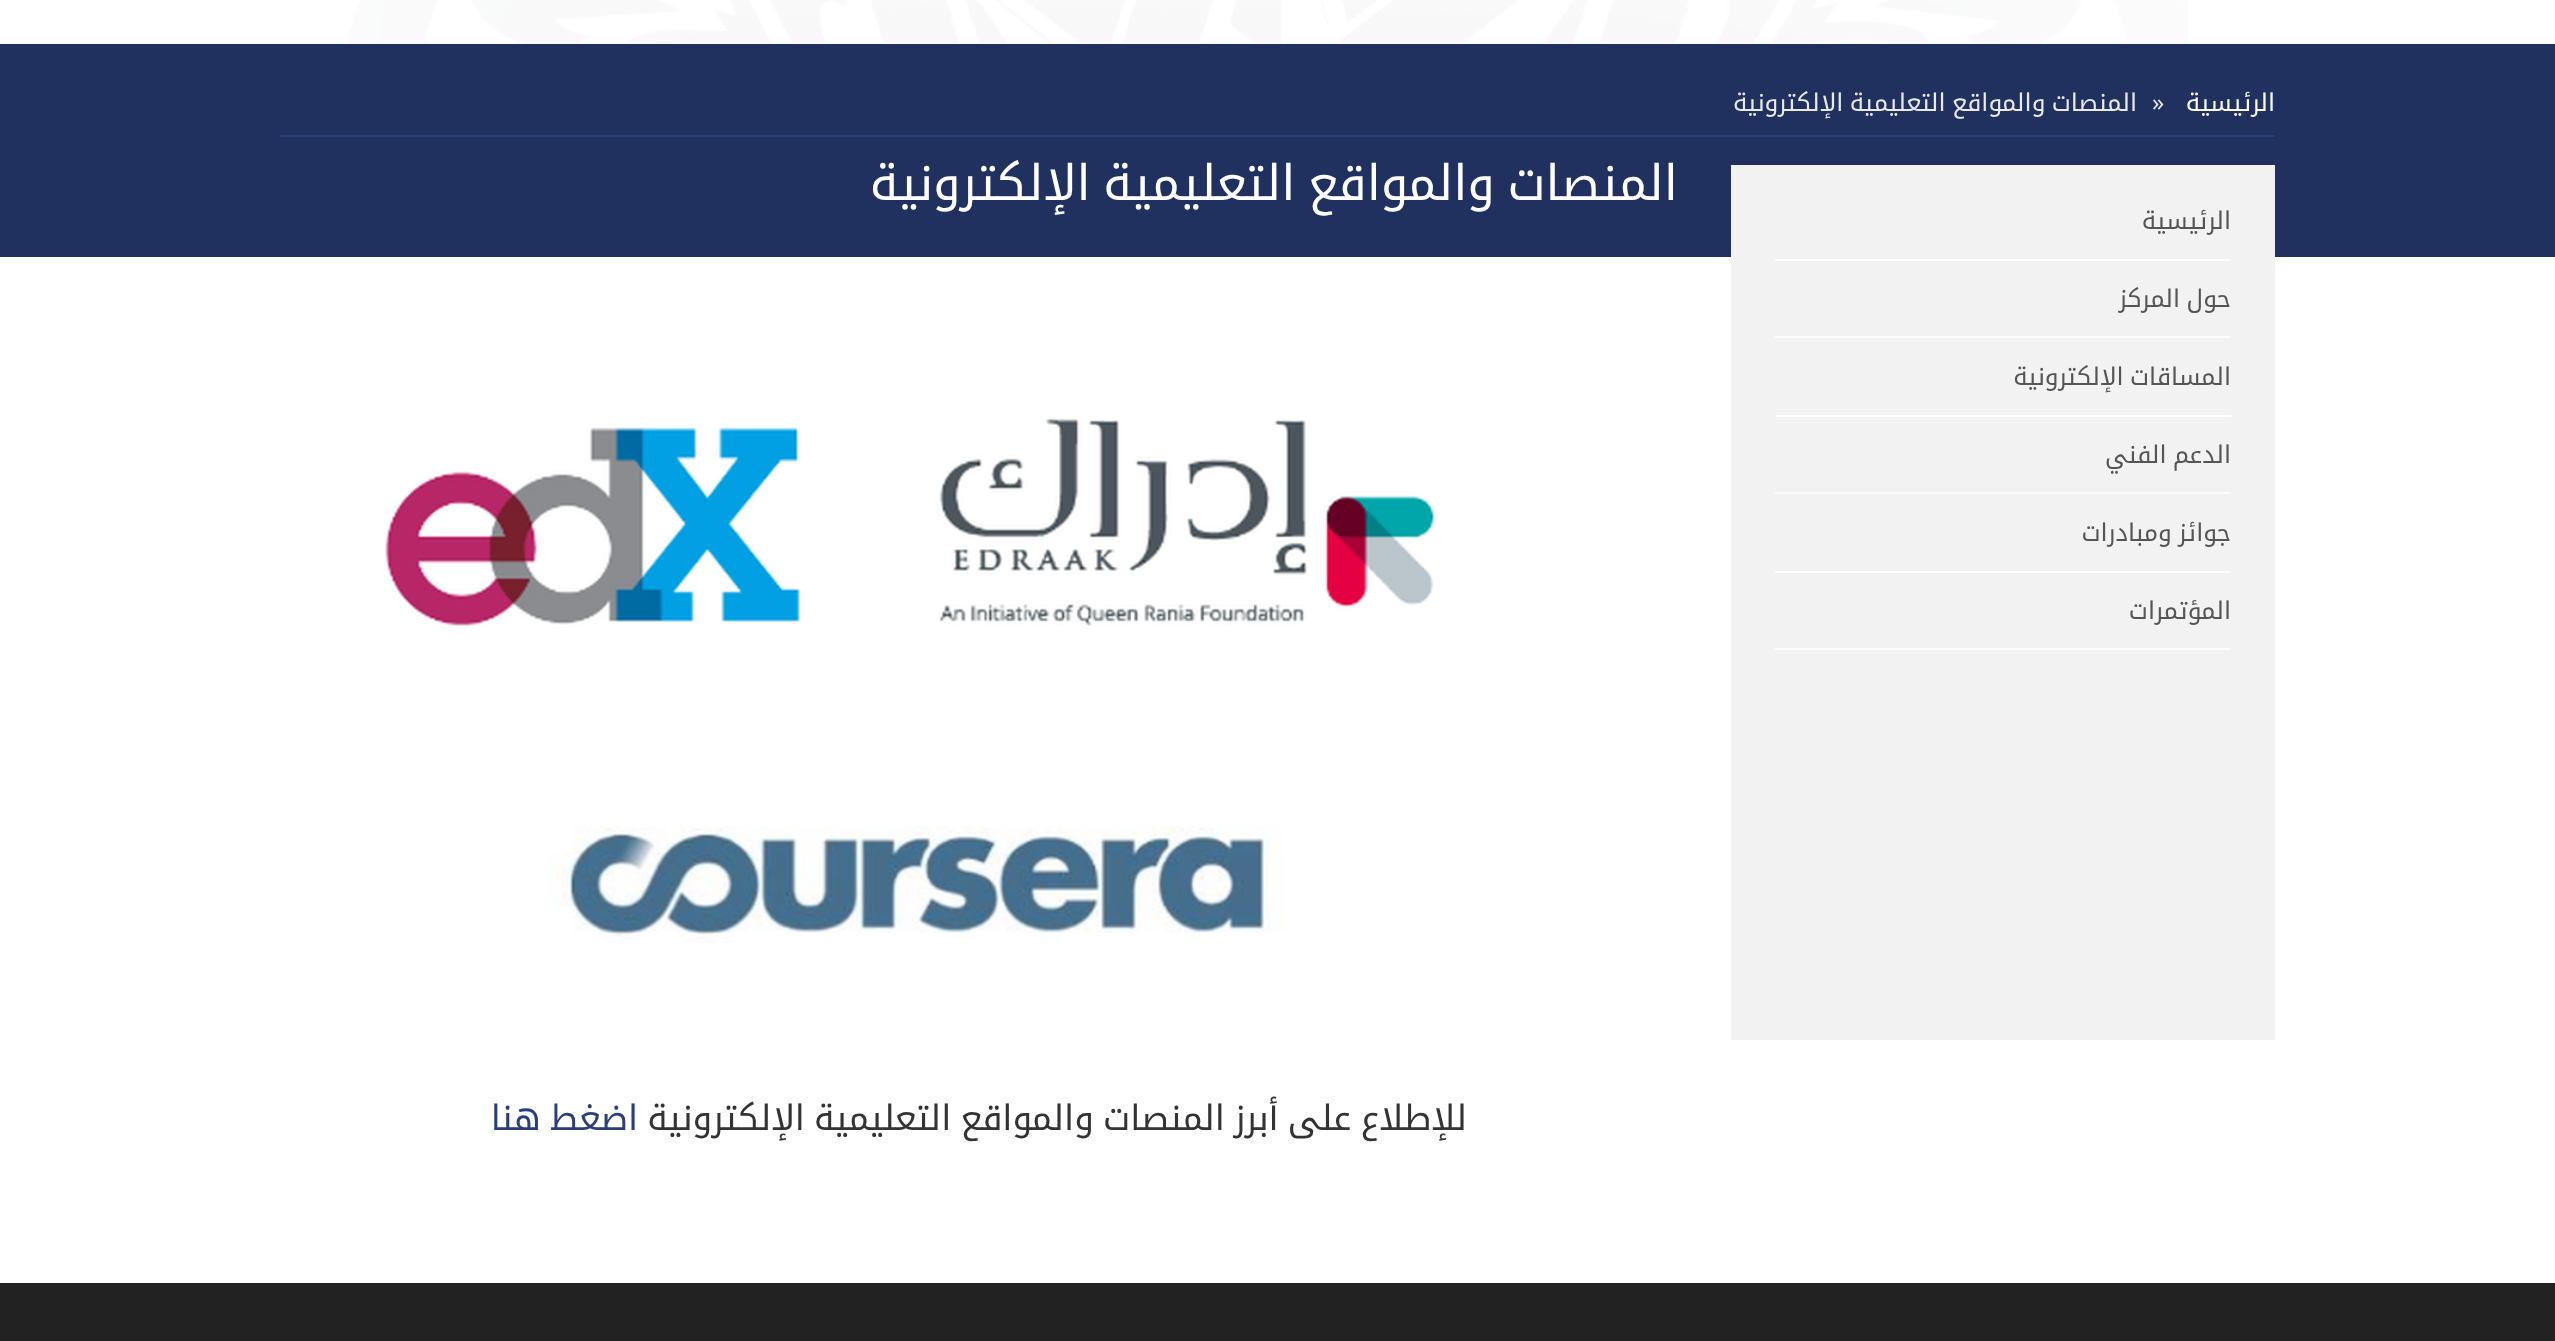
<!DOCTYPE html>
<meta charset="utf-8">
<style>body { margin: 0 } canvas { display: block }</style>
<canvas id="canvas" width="2555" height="1341"></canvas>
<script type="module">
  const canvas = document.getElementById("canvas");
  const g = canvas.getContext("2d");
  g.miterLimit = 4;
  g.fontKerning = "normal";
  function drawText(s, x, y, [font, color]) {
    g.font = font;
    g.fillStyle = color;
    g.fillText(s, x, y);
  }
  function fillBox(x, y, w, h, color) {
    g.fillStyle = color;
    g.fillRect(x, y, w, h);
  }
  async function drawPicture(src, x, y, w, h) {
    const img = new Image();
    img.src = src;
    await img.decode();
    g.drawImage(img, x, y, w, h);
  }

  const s1 = ["24.5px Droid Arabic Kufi", "#FFFFFF"];
  const s2 = ["24.5px Open Sans", "#E9E9E9"];
  const s3 = ["24.5px Droid Arabic Kufi", "#E9E9E9"];
  const s4 = ["49px Droid Arabic Kufi", "#FFFFFF"];
  const s5 = ["24.5px Droid Arabic Kufi", "#555555"];
  const s6 = ["35px Droid Arabic Kufi", "#333333"];
  const s7 = ["35px Droid Arabic Kufi", "#293F7B"];

  fillBox(0, 0, 2555, 1341, "#FFFFFF");
  await drawPicture("pic1.png", 347, 0, 1841, 43);
  fillBox(0, 44, 2555, 213, "#203160");
  fillBox(280, 135, 1995, 2, "#2A407D");
  g.direction = "rtl";
  drawText("الرئيسية", 2275, 111, s1);
  g.direction = "ltr";
  drawText("»", 2152, 111, s2);
  g.wordSpacing = "-2px";
  g.direction = "rtl";
  drawText("المنصات والمواقع التعليمية الإلكترونية", 2137, 111, s3);
  g.wordSpacing = "-4px";
  drawText("المنصات والمواقع التعليمية الإلكترونية", 1678, 200, s4);
  fillBox(1731, 165, 544, 875, "#F2F2F2");
  fillBox(1775, 259, 456, 2, "#FDFDFD");
  g.wordSpacing = "0px";
  drawText("الرئيسية", 2231, 229, s5);
  fillBox(1775, 336, 456, 2, "#FDFDFD");
  g.wordSpacing = "-2px";
  drawText("حول المركز", 2231, 307, s5);
  fillBox(1775, 415, 456, 2, "#FDFDFD");
  drawText("المساقات الإلكترونية", 2231, 385, s5);
  fillBox(1775, 492, 456, 2, "#FDFDFD");
  drawText("الدعم الفني", 2231, 463, s5);
  fillBox(1775, 571, 456, 2, "#FDFDFD");
  drawText("جوائز ومبادرات", 2231, 541, s5);
  fillBox(1775, 648, 456, 2, "#FDFDFD");
  g.wordSpacing = "0px";
  drawText("المؤتمرات", 2231, 619, s5);
  await drawPicture("pic2.png", 384, 418, 1054, 525);
  g.wordSpacing = "-2.75px";
  drawText("للإطلاع على أبرز المنصات والمواقع التعليمية الإلكترونية", 1467, 1130, s6);
  drawText("اضغط هنا", 638, 1130, s7);
  fillBox(0, 1283, 2555, 58, "#222222");
</script>
